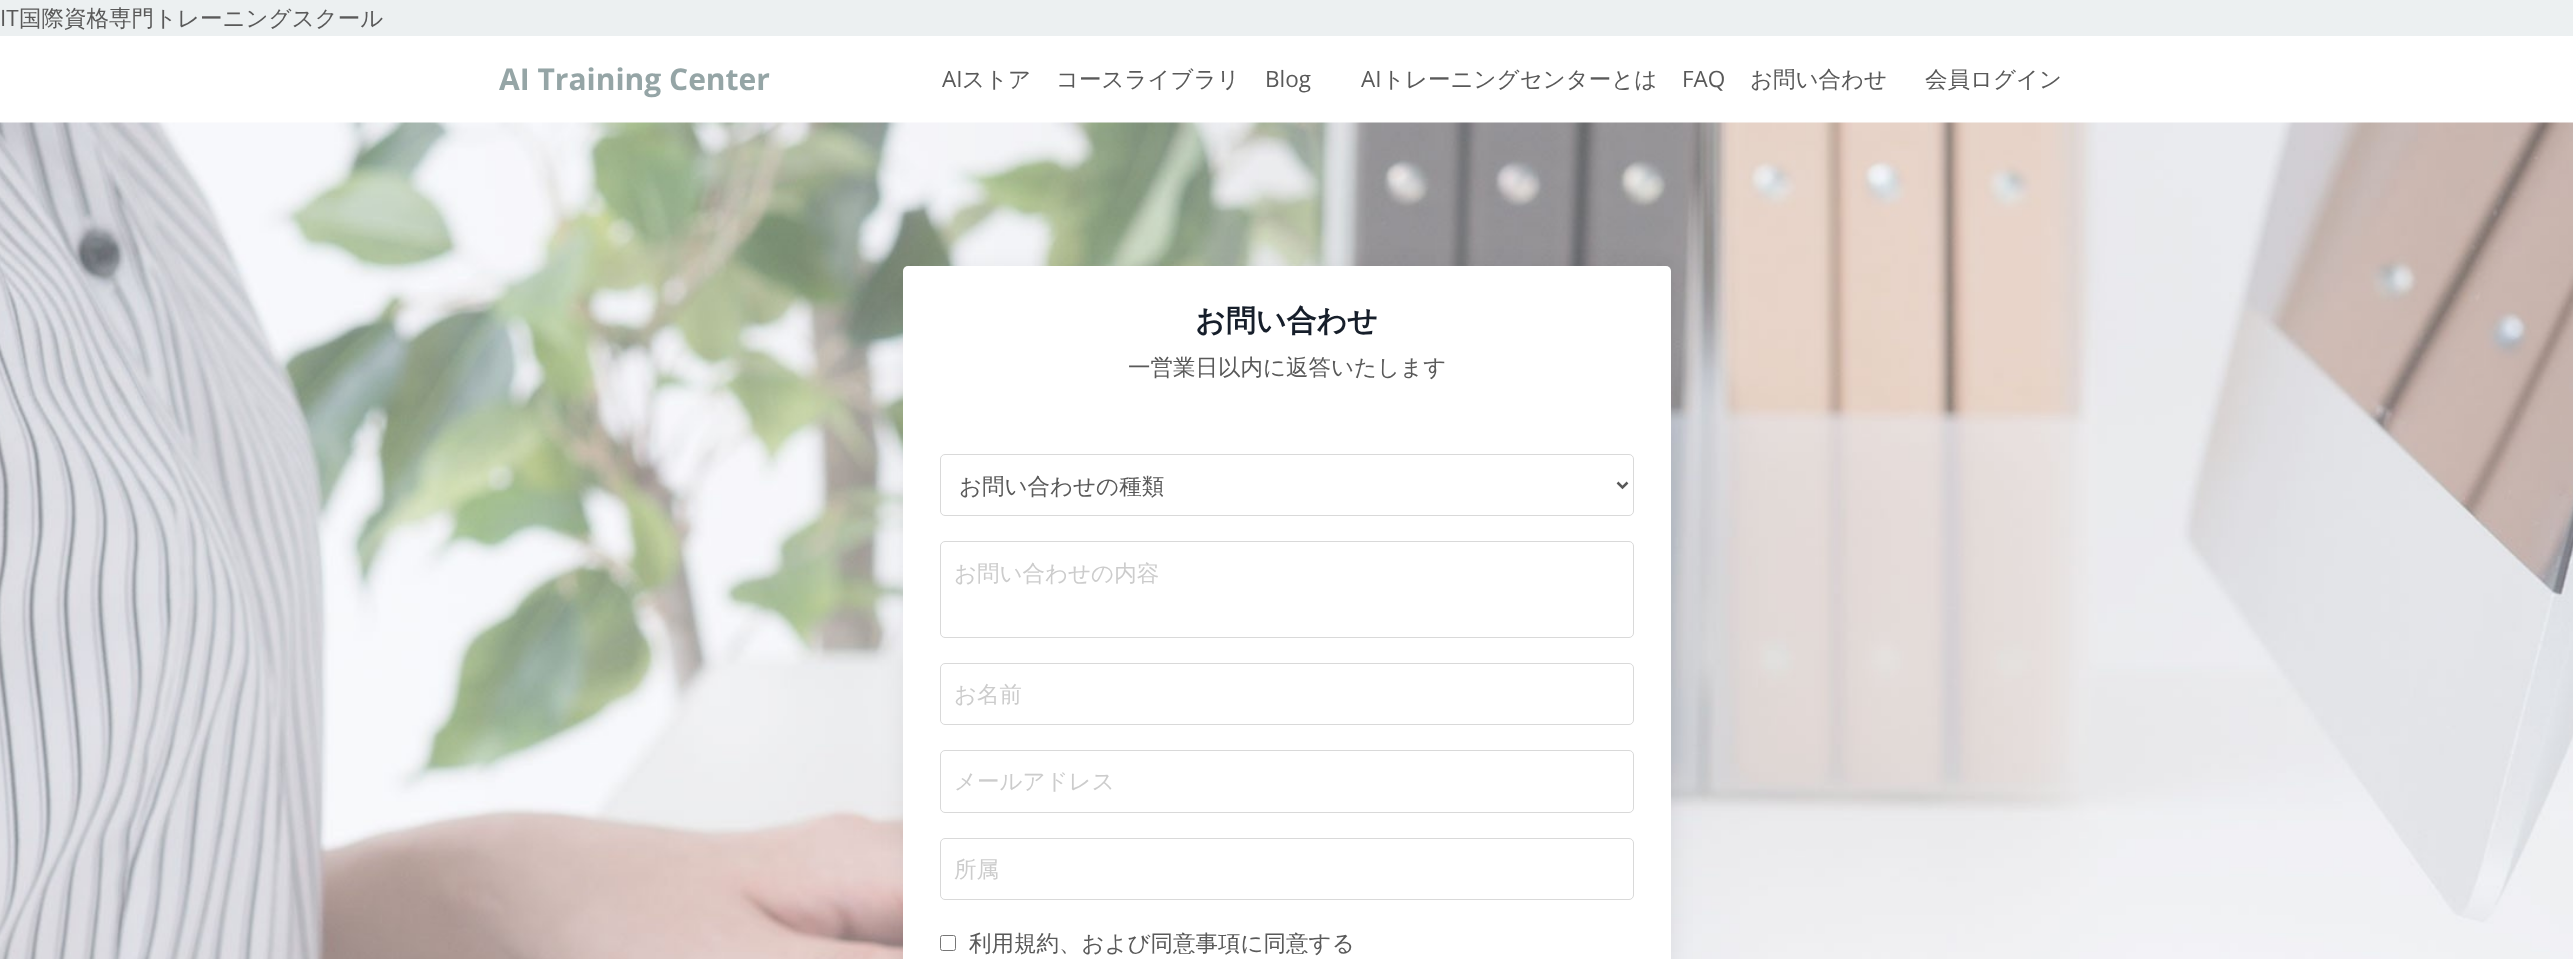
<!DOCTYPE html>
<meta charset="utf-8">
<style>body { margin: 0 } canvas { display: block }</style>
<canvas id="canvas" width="2573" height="959"></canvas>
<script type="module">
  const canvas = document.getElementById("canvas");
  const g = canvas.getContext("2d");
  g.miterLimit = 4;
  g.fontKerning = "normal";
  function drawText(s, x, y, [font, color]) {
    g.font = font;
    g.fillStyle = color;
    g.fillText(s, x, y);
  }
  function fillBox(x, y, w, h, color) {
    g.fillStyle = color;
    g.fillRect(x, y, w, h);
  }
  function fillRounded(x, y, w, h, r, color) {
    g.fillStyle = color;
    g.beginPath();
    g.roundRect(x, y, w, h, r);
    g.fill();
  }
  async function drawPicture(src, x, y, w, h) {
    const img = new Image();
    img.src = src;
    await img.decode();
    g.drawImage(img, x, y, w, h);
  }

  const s1 = ["22.5px Open Sans", "#595959"];
  const s2 = ["500 22.5px WenQuanYi Zen Hei", "#595959"];
  const s3 = ["bold 30px Open Sans", "#95A5A6"];
  const s4 = ["bold 30px WenQuanYi Zen Hei", "#161E2A"];
  const s5 = ["500 22.5px WenQuanYi Zen Hei", "#CCCCCC"];

  fillBox(0, 0, 2573, 959, "#ECF0F1");
  drawText("IT", 0, 26, s1);
  drawText("国際資格専門トレーニングスクール", 19, 26, s2);
  fillBox(0, 36, 2573, 87, "#FFFFFF");
  drawText("AI Training Center", 499, 90, s3);
  drawText("AI", 942, 87, s1);
  drawText("ストア", 962, 87, s2);
  drawText("コースライブラリ", 1056, 87, s2);
  drawText("Blog", 1265, 87, s1);
  drawText("AI", 1361, 87, s1);
  drawText("トレーニングセンターとは", 1382, 87, s2);
  drawText("FAQ", 1682, 87, s1);
  drawText("お問い合わせ", 1750, 87, s2);
  drawText("会員ログイン", 1925, 87, s2);
  await drawPicture("pic1.png", 0, 122, 2573, 837);
  g.fillStyle = "rgba(0, 0, 0, 0.07)";
  g.filter = "blur(12.5px)";
  g.beginPath();
  g.roundRect(903, 271, 768, 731, 5);
  g.fill();
  g.filter = "none";
  fillRounded(903, 266, 768, 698, 5, "#FFFFFF");
  drawText("お問い合わせ", 1195, 331, s4);
  drawText("一営業日以内に返答いたします", 1128, 375, s2);
  g.beginPath();
  g.roundRect(940.5, 454.5, 693, 61, 4.5);
  g.strokeStyle = "#D9D9D9";
  g.stroke();
  g.beginPath();
  g.moveTo(1617.5, 482.5);
  g.lineTo(1622.5, 487.5);
  g.lineTo(1627.5, 482.5);
  g.strokeStyle = "#595959";
  g.lineWidth = 2.5;
  g.stroke();
  drawText("お問い合わせの種類", 959, 494, s2);
  g.beginPath();
  g.roundRect(940.5, 541.5, 693, 96, 4.5);
  g.strokeStyle = "#D9D9D9";
  g.lineWidth = 1;
  g.stroke();
  drawText("お問い合わせの内容", 954, 581, s5);
  g.beginPath();
  g.roundRect(940.5, 663.5, 693, 61, 4.5);
  g.stroke();
  drawText("お名前", 954, 702, s5);
  g.beginPath();
  g.roundRect(940.5, 750.5, 693, 62, 4.5);
  g.stroke();
  drawText("メールアドレス", 954, 789, s5);
  g.beginPath();
  g.roundRect(940.5, 838.5, 693, 61, 4.5);
  g.stroke();
  drawText("所属", 954, 877, s5);
  g.beginPath();
  g.roundRect(940.5, 935.5, 15, 15, 2);
  g.strokeStyle = "#767676";
  g.stroke();
  drawText("利用規約、および同意事項に同意する", 969, 951, s2);
</script>
